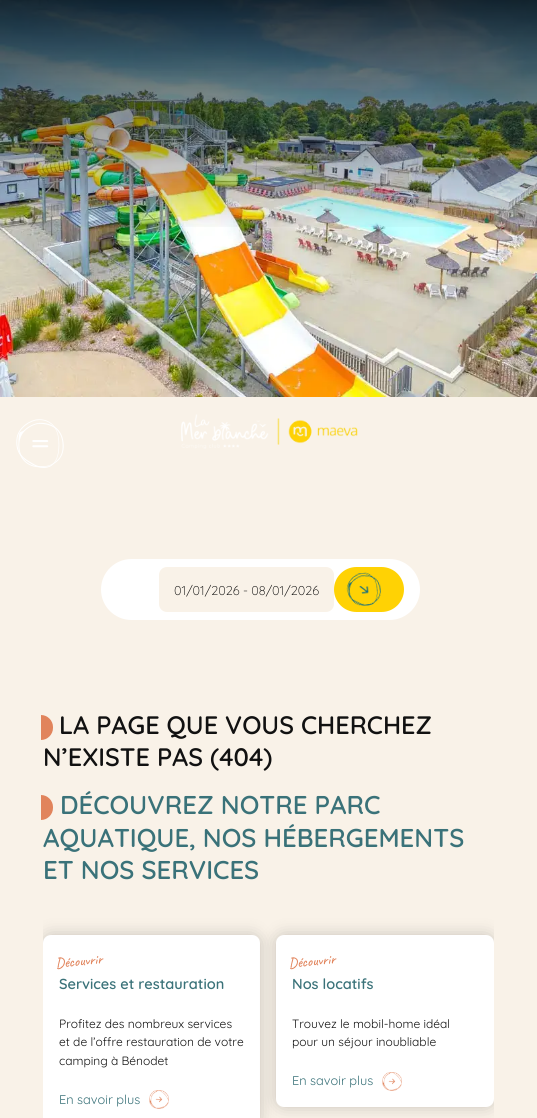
import math
import cairo

surface = cairo.ImageSurface(cairo.FORMAT_RGB24, 537, 1118)
c = cairo.Context(surface)
options = cairo.FontOptions()
options.set_hint_metrics(cairo.HINT_METRICS_OFF)
options.set_hint_style(cairo.HINT_STYLE_NONE)
c.set_font_options(options)
c.set_miter_limit(4)
def C(code):
 c.set_source_rgb(*(v / 255 for v in bytes.fromhex(code[-6:])))
def F(family, size, italic, bold):
 c.select_font_face(family, cairo.FONT_SLANT_ITALIC if italic else cairo.FONT_SLANT_NORMAL, cairo.FONT_WEIGHT_BOLD if bold else cairo.FONT_WEIGHT_NORMAL)
 c.set_font_size(size)
def T(x, y, s):
 c.move_to(x, y)
 c.show_text(s)
def R(x, y, w, h):
 c.rectangle(x, y, w, h)
 c.fill()
def Q(x, y, w, h, r):
 c.new_sub_path()
 for i, (u, v) in enumerate([(x + w - r, y + h - r), (x + r, y + h - r), (x + r, y + r), (x + w - r, y + r)]):
  c.arc(u, v, r, i * math.pi / 2, (i + 1) * math.pi / 2)
 c.close_path()
def S(x, y, w, h, r, blur, alpha):
 c.push_group_with_content(cairo.CONTENT_ALPHA)
 c.set_operator(cairo.OPERATOR_SOURCE)
 for i in range(15, -16, -2):
  e = blur * i / 6
  if min(w, h) + 2 * e > 0:
   c.set_source_rgba(0, 0, 0, alpha * math.erfc((i - 1) / 8.5) / 2)
   Q(x - e, y - e, w + 2 * e, h + 2 * e, max(0, min(r + e + blur * .6, min(w, h) / 2 + e)))
   c.fill()
 c.mask(c.pop_group())
def I(path, x, y, w, h):
 c.save()
 c.set_source_surface(cairo.ImageSurface.create_from_png(path), x, y)
 c.rectangle(x, y, w, h)
 c.fill()
 c.restore()
C('f9f2e8')
c.paint()
I('1.png',0,0,537,397)
gradient = cairo.LinearGradient(269,666,269,0)
gradient.add_color_stop_rgba(0,0,0,0,0)
gradient.add_color_stop_rgba(.65,0,0,0,0)
gradient.add_color_stop_rgba(1,0,0,0,.8)
c.set_source(gradient)
R(0,0,537,227)
I('2.png',16,419,48,49)
I('3.png',181,414,177,35)
C('ffffff')
Q(101,559,319,61,30.5)
c.fill()
C('f9f2e8')
Q(159,567,175,45,8)
c.fill()
F('Quicksand Light',12.75,0,0)
C('000000')
T(174,595,'01/01/2026 - 08/01/2026')
C('ffd204')
Q(334,567,70,45,22.5)
c.fill()
I('4.png',346,572,35,34)
C('e1845c')
c.new_path()
c.move_to(41,715)
c.curve_to(47.5,715,53,720.5,53,727)
c.line_to(53,728)
c.curve_to(53,734.5,47.5,740,41,740)
c.close_path()
c.fill()
F('Quicksand SemiBold',25.25,0,0)
C('111111')
T(59,734,'LA PAGE QUE VOUS CHERCHEZ')
T(43,766,'N’EXISTE PAS (404)')
C('e1845c')
c.new_path()
c.move_to(41,795)
c.curve_to(47.5,795,53,800.5,53,807)
c.line_to(53,808)
c.curve_to(53,814.5,47.5,820,41,820)
c.close_path()
c.fill()
F('Quicksand SemiBold',25.75,0,0)
C('3a7279')
T(60,814,'DÉCOUVREZ NOTRE PARC')
T(43,847,'AQUATIQUE, NOS HÉBERGEMENTS')
T(43,879,'ET NOS SERVICES')
c.save()
c.rectangle(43,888,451,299)
c.clip()
C('000000')
S(43,935,217,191,8,8,.2)
c.restore()
C('ffffff')
Q(43,935,217,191,8)
c.fill()
F('Caveat Medium',14.5,0,0)
C('e1845c')
c.save()
c.translate(56,968)
c.rotate(-5.5 * math.pi / 180)
T(0,0,'Découvrir')
c.restore()
F('Quicksand SemiBold',14.5,0,0)
C('3a7279')
T(59,989,'Services et restauration')
F('Quicksand',12,0,0)
C('111111')
T(59,1028,'Profitez des nombreux services')
T(59,1046,'et de l’offre restauration de votre')
T(59,1065,'camping à Bénodet')
F('Quicksand',12.75,0,0)
C('3a7279')
T(59,1104,'En savoir plus')
I('5.png',149,1090,20,19)
c.save()
c.rectangle(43,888,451,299)
c.clip()
C('000000')
S(276,935,218,172,8,8,.2)
c.restore()
C('ffffff')
Q(276,935,218,172,8)
c.fill()
F('Caveat Medium',14.5,0,0)
C('e1845c')
c.save()
c.translate(289,968)
c.rotate(-5.5 * math.pi / 180)
T(0,0,'Découvrir')
c.restore()
F('Quicksand SemiBold',14.5,0,0)
C('3a7279')
T(292,989,'Nos locatifs')
F('Quicksand',12,0,0)
C('111111')
T(292,1028,'Trouvez le mobil-home idéal')
T(292,1046,'pour un séjour inoubliable')
F('Quicksand',12.75,0,0)
C('3a7279')
T(292,1085,'En savoir plus')
I('5.png',382,1072,20,19)
surface.write_to_png('o.png')
